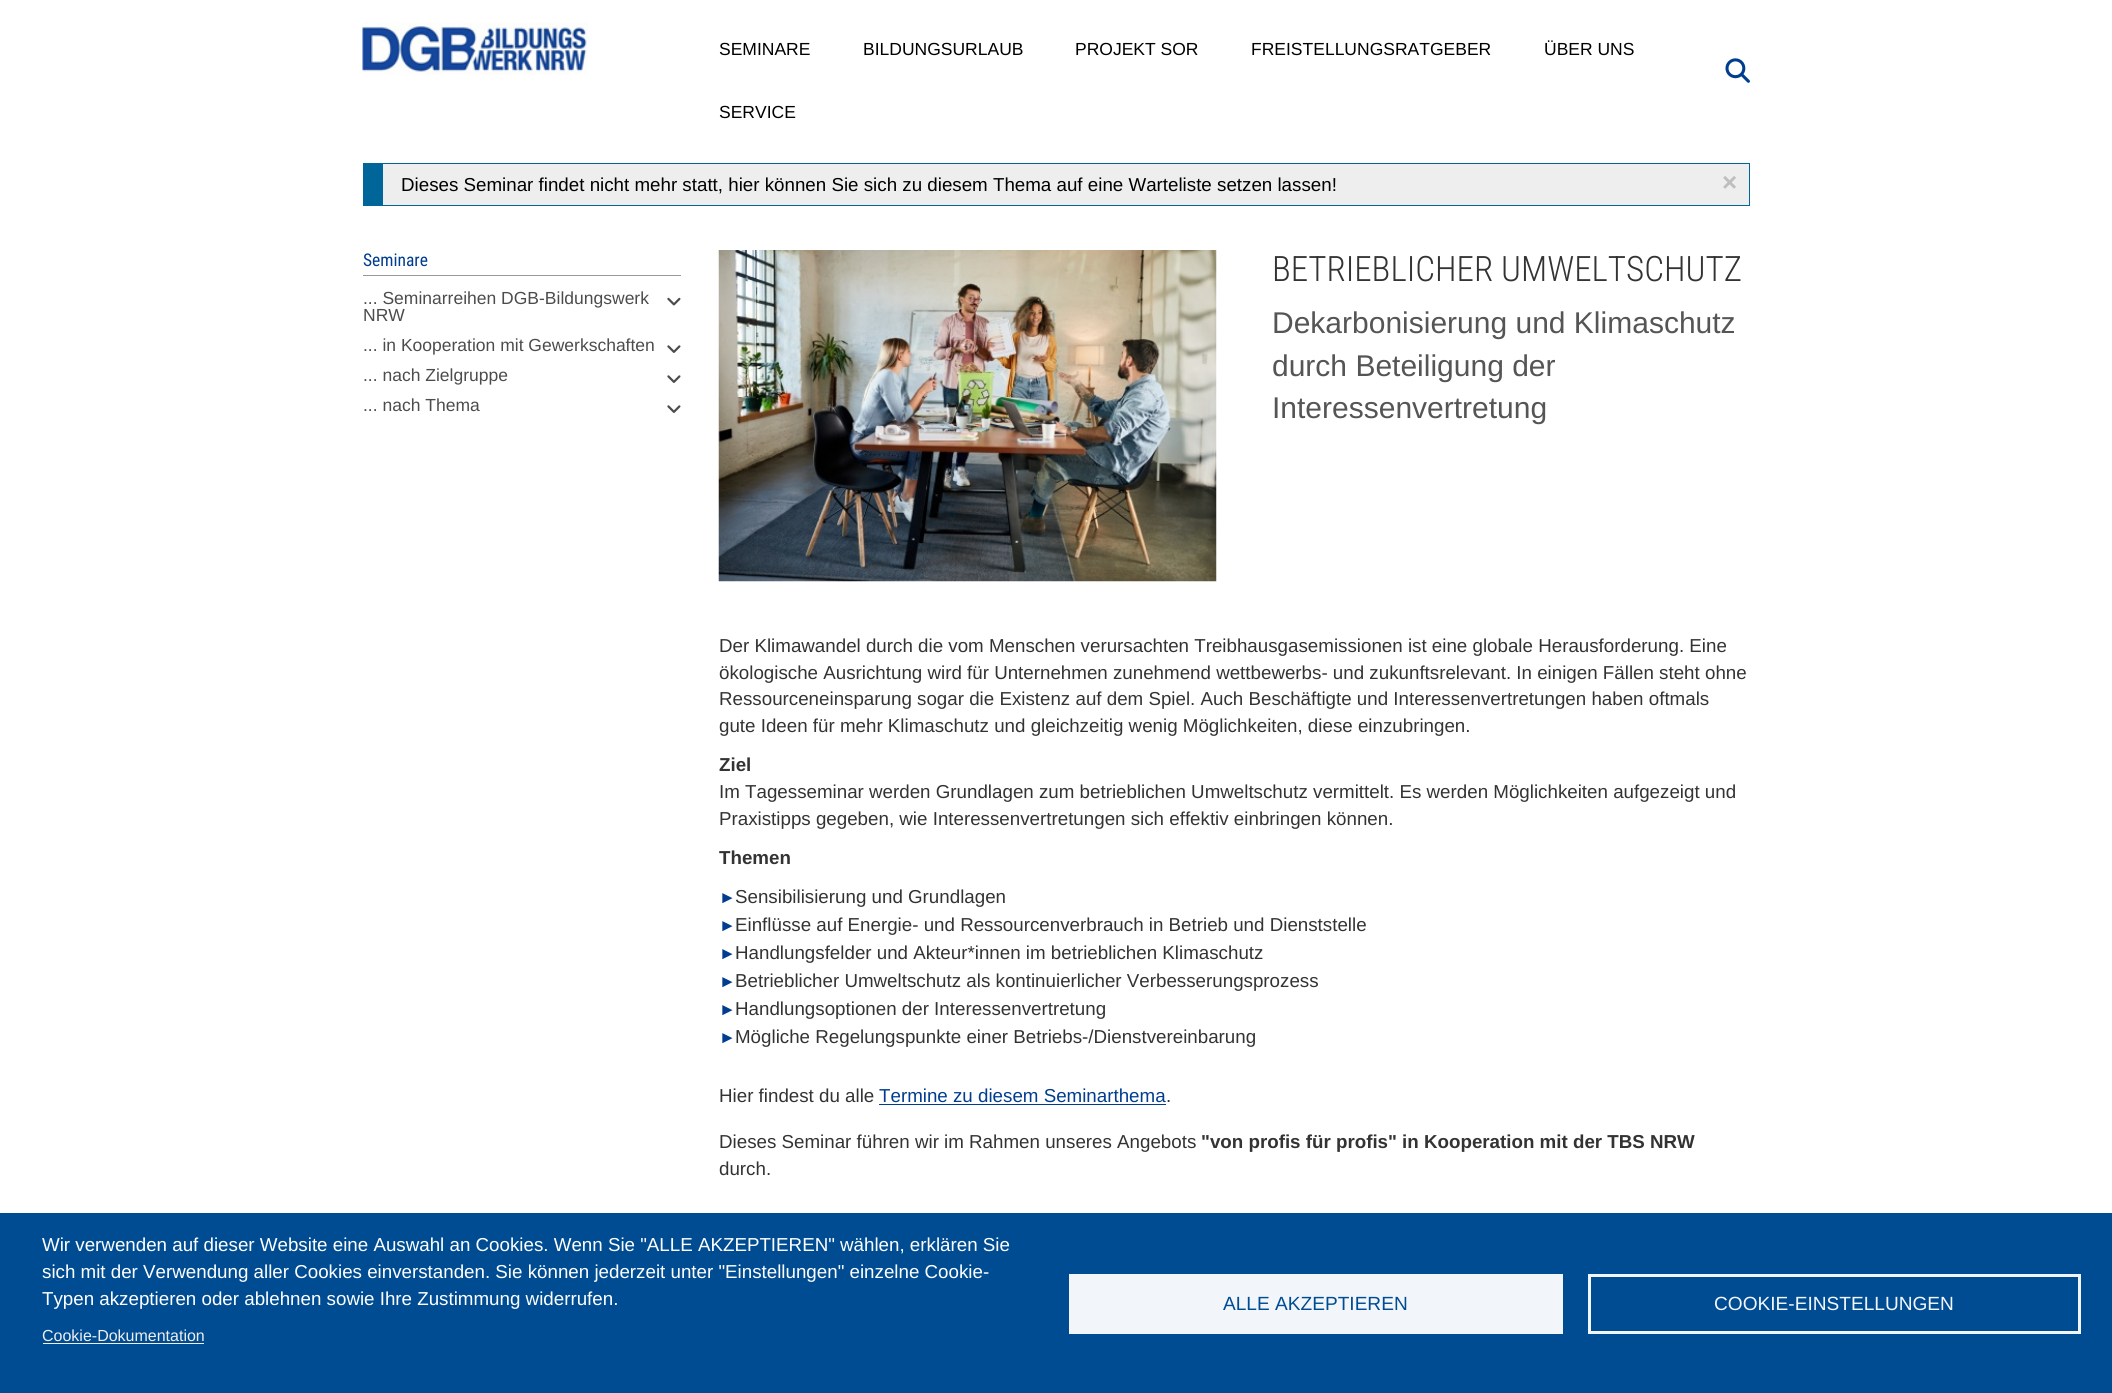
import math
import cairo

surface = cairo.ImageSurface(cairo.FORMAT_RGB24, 2112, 1393)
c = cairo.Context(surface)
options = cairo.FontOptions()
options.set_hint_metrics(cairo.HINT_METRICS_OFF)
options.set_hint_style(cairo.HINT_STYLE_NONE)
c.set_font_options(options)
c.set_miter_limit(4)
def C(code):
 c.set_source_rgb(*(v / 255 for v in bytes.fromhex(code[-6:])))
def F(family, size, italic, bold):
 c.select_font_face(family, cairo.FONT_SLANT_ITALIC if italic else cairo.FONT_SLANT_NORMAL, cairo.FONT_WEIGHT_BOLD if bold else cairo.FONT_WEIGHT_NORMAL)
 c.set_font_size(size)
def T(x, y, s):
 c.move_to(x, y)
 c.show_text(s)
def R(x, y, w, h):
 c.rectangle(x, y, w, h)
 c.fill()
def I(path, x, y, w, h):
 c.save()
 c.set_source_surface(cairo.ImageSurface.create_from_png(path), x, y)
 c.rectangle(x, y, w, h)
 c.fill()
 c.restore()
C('ffffff')
c.paint()
I('1.png',362,22,226,53)
F('Liberation Sans',17.5,0,0)
C('000000')
T(719,55,'SEMINARE')
T(863,55,'BILDUNGSURLAUB')
T(1075,55,'PROJEKT SOR')
T(1251,55,'FREISTELLUNGSRATGEBER')
T(1544,55,'ÜBER UNS')
T(719,118,'SERVICE')
I('2.png',1725,58,25,25)
C('eeeeee')
R(383,164,1366,41)
c.rectangle(363.5,163.5,1386,42)
C('006699')
c.set_line_width(1)
c.stroke()
R(364,164,19,41)
F('Liberation Sans',18.75,0,0)
C('000000')
T(401,191,'Dieses Seminar findet nicht mehr statt, hier können Sie sich zu diesem Thema auf eine Warteliste setzen lassen!')
F('Liberation Sans',26,0,1)
C('bebebe')
T(1722,191,'×')
F('Roboto Condensed',17.5,0,0)
C('003d8e')
T(363,266,'Seminare')
C('999999')
R(363,275,318,1)
F('Liberation Sans',17.5,0,0)
C('4c4c4c')
T(363,304,'... Seminarreihen DGB-Bildungswerk')
I('3.png',667,297,14,9)
T(363,321,'NRW')
T(363,351,'... in Kooperation mit Gewerkschaften')
I('4.png',667,345,14,8)
T(363,381,'... nach Zielgruppe')
I('4.png',667,375,14,8)
T(363,411,'... nach Thema')
I('4.png',667,405,14,8)
I('5.png',718,250,499,332)
F('Roboto Condensed Light',35,0,0)
C('333333')
T(1272,281,'BETRIEBLICHER UMWELTSCHUTZ')
F('Liberation Sans',30,0,0)
C('555555')
T(1272,333,'Dekarbonisierung und Klimaschutz')
T(1272,376,'durch Beteiligung der')
T(1272,418,'Interessenvertretung')
F('Liberation Sans',18.75,0,0)
C('333333')
T(719,652,'Der Klimawandel durch die vom Menschen verursachten Treibhausgasemissionen ist eine globale Herausforderung. Eine')
T(719,679,'ökologische Ausrichtung wird für Unternehmen zunehmend wettbewerbs- und zukunftsrelevant. In einigen Fällen steht ohne')
T(719,705,'Ressourceneinsparung sogar die Existenz auf dem Spiel. Auch Beschäftigte und Interessenvertretungen haben oftmals')
T(719,732,'gute Ideen für mehr Klimaschutz und gleichzeitig wenig Möglichkeiten, diese einzubringen.')
F('Liberation Sans',18.75,0,1)
T(719,771,'Ziel')
F('Liberation Sans',18.75,0,0)
T(719,798,'Im Tagesseminar werden Grundlagen zum betrieblichen Umweltschutz vermittelt. Es werden Möglichkeiten aufgezeigt und')
T(719,825,'Praxistipps gegeben, wie Interessenvertretungen sich effektiv einbringen können.')
F('Liberation Sans',18.75,0,1)
T(719,864,'Themen')
F('Liberation Sans',17,0,0)
C('003d8e')
T(719,903,'►')
F('Liberation Sans',18.75,0,0)
C('333333')
T(735,903,'Sensibilisierung und Grundlagen')
F('Liberation Sans',17,0,0)
C('003d8e')
T(719,931,'►')
F('Liberation Sans',18.75,0,0)
C('333333')
T(735,931,'Einflüsse auf Energie- und Ressourcenverbrauch in Betrieb und Dienststelle')
F('Liberation Sans',17,0,0)
C('003d8e')
T(719,959,'►')
F('Liberation Sans',18.75,0,0)
C('333333')
T(735,959,'Handlungsfelder und Akteur*innen im betrieblichen Klimaschutz')
F('Liberation Sans',17,0,0)
C('003d8e')
T(719,987,'►')
F('Liberation Sans',18.75,0,0)
C('333333')
T(735,987,'Betrieblicher Umweltschutz als kontinuierlicher Verbesserungsprozess')
F('Liberation Sans',17,0,0)
C('003d8e')
T(719,1015,'►')
F('Liberation Sans',18.75,0,0)
C('333333')
T(735,1015,'Handlungsoptionen der Interessenvertretung')
F('Liberation Sans',17,0,0)
C('003d8e')
T(719,1043,'►')
F('Liberation Sans',18.75,0,0)
C('333333')
T(735,1043,'Mögliche Regelungspunkte einer Betriebs-/Dienstvereinbarung')
T(719,1102,'Hier findest du alle')
C('003d8e')
T(879,1102,'Termine zu diesem Seminarthema')
C('333333')
T(1166,1102,'.')
C('003d8e')
R(879,1104,287,1)
C('333333')
T(719,1148,'Dieses Seminar führen wir im Rahmen unseres Angebots')
F('Liberation Sans',18.75,0,1)
T(1201,1148,'"von profis für profis" in Kooperation mit der TBS NRW')
F('Liberation Sans',18.75,0,0)
T(719,1175,'durch.')
C('004c93')
R(0,1213,2112,180)
C('ffffff')
T(42,1251,'Wir verwenden auf dieser Website eine Auswahl an Cookies. Wenn Sie "ALLE AKZEPTIEREN" wählen, erklären Sie')
T(42,1278,'sich mit der Verwendung aller Cookies einverstanden. Sie können jederzeit unter "Einstellungen" einzelne Cookie-')
T(42,1305,'Typen akzeptieren oder ablehnen sowie Ihre Zustimmung widerrufen.')
F('Liberation Sans',16,0,0)
C('eeeeee')
T(42,1341,'Cookie-Dokumentation')
R(43,1343,161,1)
C('f2f6fa')
R(1069,1274,494,60)
F('Liberation Sans',19.1,0,0)
C('004c93')
T(1223,1310,'ALLE AKZEPTIEREN')
c.rectangle(1589.5,1275.5,490,57)
C('f2f6fa')
c.set_line_width(3)
c.stroke()
T(1714,1310,'COOKIE-EINSTELLUNGEN')
surface.write_to_png('o.png')
